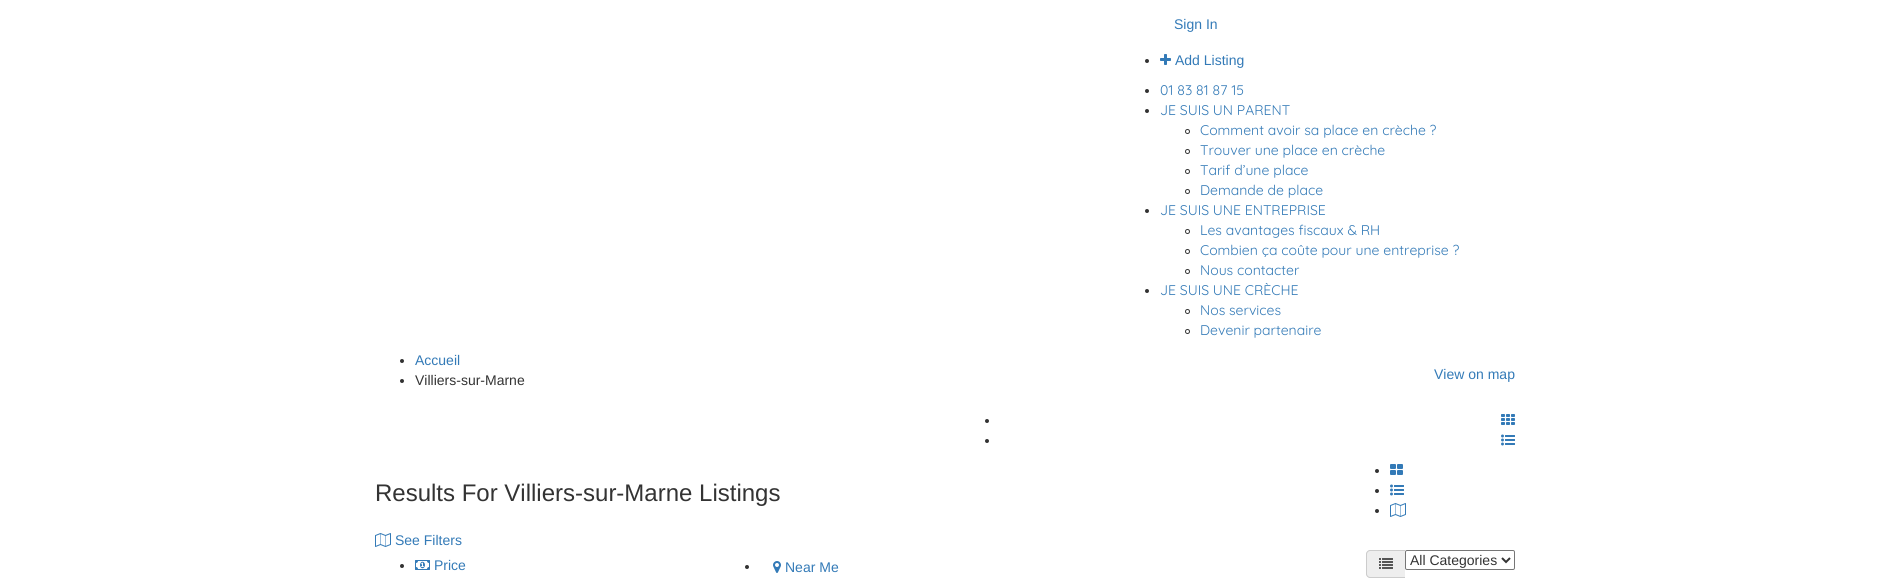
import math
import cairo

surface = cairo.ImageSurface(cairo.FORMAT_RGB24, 1890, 582)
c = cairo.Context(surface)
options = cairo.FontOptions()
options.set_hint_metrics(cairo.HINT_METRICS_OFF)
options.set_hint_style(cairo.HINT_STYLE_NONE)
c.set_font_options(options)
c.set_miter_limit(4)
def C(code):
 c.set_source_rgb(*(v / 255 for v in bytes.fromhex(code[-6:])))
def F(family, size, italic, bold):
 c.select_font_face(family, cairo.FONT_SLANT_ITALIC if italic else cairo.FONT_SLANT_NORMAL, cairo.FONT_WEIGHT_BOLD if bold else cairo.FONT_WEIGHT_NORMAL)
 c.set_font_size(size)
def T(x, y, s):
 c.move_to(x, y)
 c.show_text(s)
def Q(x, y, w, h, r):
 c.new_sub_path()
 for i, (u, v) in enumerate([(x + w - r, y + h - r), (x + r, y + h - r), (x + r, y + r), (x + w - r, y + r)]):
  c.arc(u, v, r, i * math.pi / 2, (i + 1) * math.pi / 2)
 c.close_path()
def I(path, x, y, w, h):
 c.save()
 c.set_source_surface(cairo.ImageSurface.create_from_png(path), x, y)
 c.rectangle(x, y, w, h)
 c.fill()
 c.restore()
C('ffffff')
c.paint()
F('Liberation Sans',14,0,0)
C('337ab7')
T(1174,29,'Sign In')
C('333333')
c.new_path()
c.arc(1147,61,2,0,2 * math.pi)
c.fill()
I('1.png',1160,54,11,11)
C('337ab7')
T(1175,65,'Add Listing')
C('333333')
c.new_path()
c.arc(1147,91,2,0,2 * math.pi)
c.fill()
F('Quicksand',14,0,0)
C('337ab7')
T(1160,95,'01 83 81 87 15')
C('333333')
c.new_path()
c.arc(1147,111,2,0,2 * math.pi)
c.fill()
C('337ab7')
T(1160,115,'JE SUIS UN PARENT')
c.new_path()
c.arc(1187.5,131.5,2,0,2 * math.pi)
C('333333')
c.set_line_width(1)
c.stroke()
C('337ab7')
T(1200,135,'Comment avoir sa place en crèche ?')
c.new_path()
c.arc(1187.5,151.5,2,0,2 * math.pi)
C('333333')
c.stroke()
C('337ab7')
T(1200,155,'Trouver une place en crèche')
c.new_path()
c.arc(1187.5,171.5,2,0,2 * math.pi)
C('333333')
c.stroke()
C('337ab7')
T(1200,175,'Tarif d’une place')
c.new_path()
c.arc(1187.5,191.5,2,0,2 * math.pi)
C('333333')
c.stroke()
C('337ab7')
T(1200,195,'Demande de place')
C('333333')
c.new_path()
c.arc(1147,211,2,0,2 * math.pi)
c.fill()
C('337ab7')
T(1160,215,'JE SUIS UNE ENTREPRISE')
c.new_path()
c.arc(1187.5,231.5,2,0,2 * math.pi)
C('333333')
c.stroke()
C('337ab7')
T(1200,235,'Les avantages fiscaux & RH')
c.new_path()
c.arc(1187.5,251.5,2,0,2 * math.pi)
C('333333')
c.stroke()
C('337ab7')
T(1200,255,'Combien ça coûte pour une entreprise ?')
c.new_path()
c.arc(1187.5,271.5,2,0,2 * math.pi)
C('333333')
c.stroke()
C('337ab7')
T(1200,275,'Nous contacter')
C('333333')
c.new_path()
c.arc(1147,291,2,0,2 * math.pi)
c.fill()
C('337ab7')
T(1160,295,'JE SUIS UNE CRÈCHE')
c.new_path()
c.arc(1187.5,311.5,2,0,2 * math.pi)
C('333333')
c.stroke()
C('337ab7')
T(1200,315,'Nos services')
c.new_path()
c.arc(1187.5,331.5,2,0,2 * math.pi)
C('333333')
c.stroke()
C('337ab7')
T(1200,335,'Devenir partenaire')
C('333333')
c.new_path()
c.arc(402,361,2,0,2 * math.pi)
c.fill()
F('Liberation Sans',14,0,0)
C('337ab7')
T(415,365,'Accueil')
C('333333')
c.new_path()
c.arc(402,381,2,0,2 * math.pi)
c.fill()
T(415,385,'Villiers-sur-Marne')
C('337ab7')
T(1434,379,'View on map')
C('333333')
c.new_path()
c.arc(987,421,2,0,2 * math.pi)
c.fill()
I('2.png',1501,414,14,11)
c.arc(987,441,2,0,2 * math.pi)
c.fill()
I('3.png',1501,434,14,12)
F('Liberation Sans',24,0,0)
T(375,501,'Results For Villiers-sur-Marne Listings')
c.new_path()
c.arc(1377,471,2,0,2 * math.pi)
c.fill()
I('4.png',1390,464,13,11)
c.arc(1377,491,2,0,2 * math.pi)
c.fill()
I('3.png',1390,484,14,12)
c.arc(1377,511,2,0,2 * math.pi)
c.fill()
I('5.png',1390,503,16,14)
I('5.png',375,533,16,14)
F('Liberation Sans',14,0,0)
C('337ab7')
T(395,545,'See Filters')
C('333333')
c.new_path()
c.arc(402,566,2,0,2 * math.pi)
c.fill()
I('6.png',415,560,15,10)
C('337ab7')
T(434,570,'Price')
C('333333')
c.new_path()
c.arc(747,567,2,0,2 * math.pi)
c.fill()
I('7.png',773,561,8,12)
C('337ab7')
T(785,572,'Near Me')
C('eeeeee')
c.new_path()
c.move_to(1370,550)
c.line_to(1405,550)
c.line_to(1405,578)
c.line_to(1370,578)
c.curve_to(1368,578,1366,576,1366,574)
c.line_to(1366,554)
c.curve_to(1366,552,1368,550,1370,550)
c.close_path()
c.fill()
C('cccccc')
c.set_fill_rule(cairo.FILL_RULE_EVEN_ODD)
c.new_path()
c.move_to(1370,550)
c.line_to(1405,550)
c.line_to(1405,578)
c.line_to(1370,578)
c.curve_to(1368,578,1366,576,1366,574)
c.line_to(1366,554)
c.curve_to(1366,552,1368,550,1370,550)
c.close_path()
c.move_to(1370,551)
c.line_to(1405,551)
c.line_to(1405,577)
c.line_to(1370,577)
c.curve_to(1368.5,577,1367,575.5,1367,574)
c.line_to(1367,554)
c.curve_to(1367,552.5,1368.5,551,1370,551)
c.close_path()
c.fill()
I('8.png',1379,558,14,11)
Q(1405.5,550.5,109,19,1.5)
C('767676')
c.stroke()
c.new_path()
c.move_to(1502,558)
c.line_to(1506,562)
c.line_to(1510,558)
C('333333')
c.set_line_width(2)
c.stroke()
T(1410,565,'All Categories')
surface.write_to_png('o.png')
